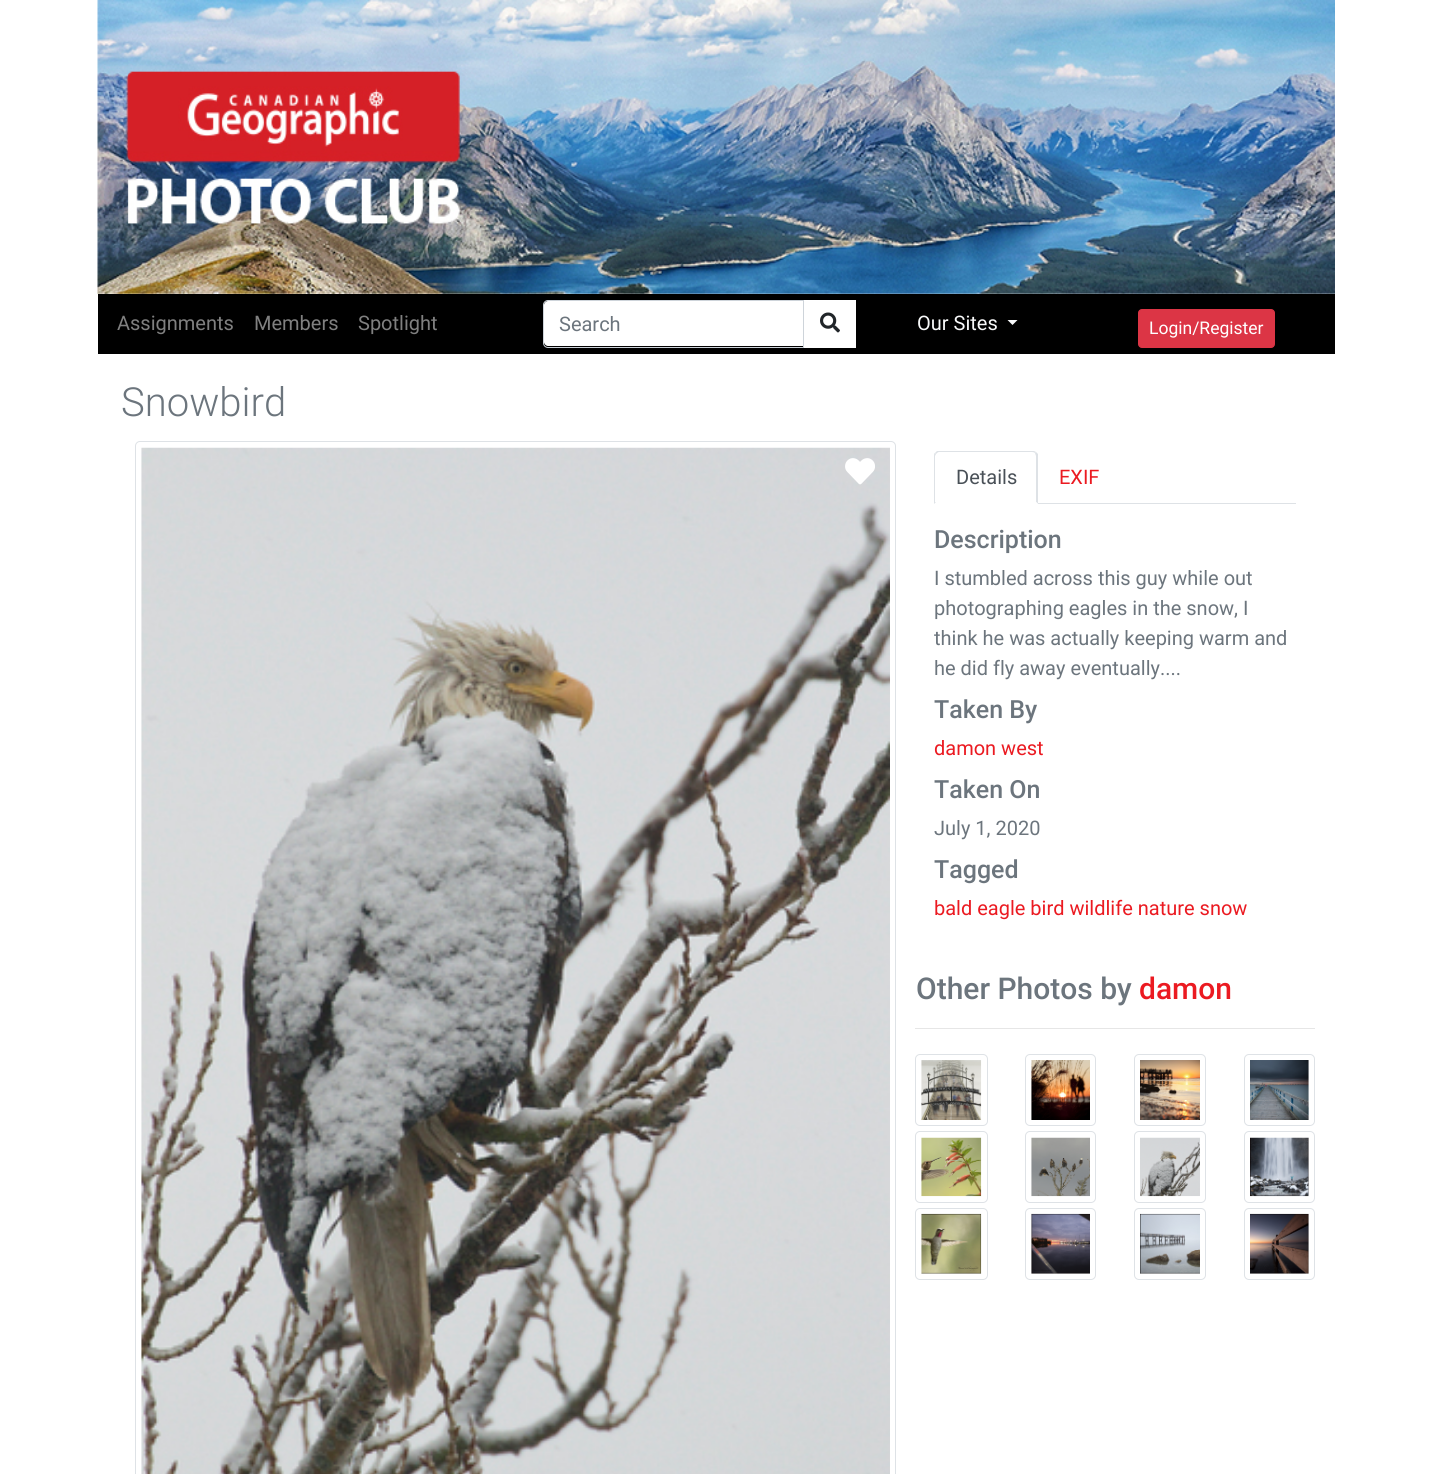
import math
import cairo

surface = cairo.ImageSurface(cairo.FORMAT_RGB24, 1431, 1474)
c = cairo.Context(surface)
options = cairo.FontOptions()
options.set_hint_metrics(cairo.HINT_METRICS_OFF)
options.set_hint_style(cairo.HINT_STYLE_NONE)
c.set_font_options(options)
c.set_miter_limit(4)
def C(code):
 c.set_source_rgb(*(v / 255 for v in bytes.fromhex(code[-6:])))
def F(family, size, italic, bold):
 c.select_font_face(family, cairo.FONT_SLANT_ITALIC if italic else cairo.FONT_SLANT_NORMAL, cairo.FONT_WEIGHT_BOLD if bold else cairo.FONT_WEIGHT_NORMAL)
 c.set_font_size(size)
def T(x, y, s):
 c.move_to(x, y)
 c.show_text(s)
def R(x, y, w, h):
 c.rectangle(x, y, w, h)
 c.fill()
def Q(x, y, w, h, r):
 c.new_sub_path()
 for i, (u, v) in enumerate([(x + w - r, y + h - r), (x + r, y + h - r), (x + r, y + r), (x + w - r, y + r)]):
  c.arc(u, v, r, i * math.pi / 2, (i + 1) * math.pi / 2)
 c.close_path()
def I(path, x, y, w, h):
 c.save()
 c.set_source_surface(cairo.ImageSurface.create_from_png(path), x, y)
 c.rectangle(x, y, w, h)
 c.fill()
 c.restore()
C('ffffff')
c.paint()
I('1.png',97,0,1238,294)
C('000000')
R(98,294,1237,60)
F('Roboto',20,0,0)
C('808080')
T(117,330,'Assignments')
T(254,330,'Members')
T(358,330,'Spotlight')
C('ffffff')
c.new_path()
c.move_to(548,301)
c.line_to(803,301)
c.line_to(803,346)
c.line_to(548,346)
c.curve_to(546,346,544,344,544,342)
c.line_to(544,305)
c.curve_to(544,303,546,301,548,301)
c.close_path()
c.fill()
c.new_path()
c.move_to(548,300.5)
c.line_to(803.5,300.5)
c.line_to(803.5,347.5)
c.line_to(548,347.5)
c.curve_to(545.5,347.5,543.5,345.5,543.5,343)
c.line_to(543.5,305)
c.curve_to(543.5,302.5,545.5,300.5,548,300.5)
c.close_path()
C('ced4da')
c.set_line_width(1)
c.stroke()
C('6c757d')
T(559,331,'Search')
C('ffffff')
R(804,300,52,48)
I('2.png',820,312,20,21)
C('f8f9fa')
T(917,330,'Our Sites')
c.new_path()
c.move_to(1007.5,320)
c.line_to(1017.5,320)
c.line_to(1012.5,325)
c.close_path()
c.fill()
C('dc3545')
Q(1138.5,309.5,136,38,3.5)
c.fill_preserve()
c.stroke()
F('Roboto',17.5,0,0)
C('ffffff')
T(1149,334,'Login/Register')
F('Roboto Light',40,0,0)
C('6c757d')
T(121,416,'Snowbird')
Q(135.5,441.5,760,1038,4.5)
C('dee2e6')
c.stroke()
I('3.png',141,447,749,1027)
I('4.png',845,458,30,27)
R(1038,503,258,1)
c.new_path()
c.move_to(939,452)
c.curve_to(938,452,937,453,936,454)
c.line_to(935,453)
c.line_to(937,451)
c.line_to(1034,451)
c.line_to(1036,452)
c.line_to(1035,453)
c.curve_to(1035,453,1034,452,1032,452)
c.close_path()
c.fill()
c.new_path()
c.move_to(1036,452)
c.line_to(1038,454)
c.line_to(1038,504)
c.line_to(1036,502)
c.line_to(1036,456)
c.line_to(1035,453)
c.close_path()
c.fill()
C('ffffff')
c.new_path()
c.move_to(1038,504)
c.line_to(934,504)
c.line_to(936,502)
c.line_to(1036,502)
c.close_path()
c.fill()
C('dee2e6')
c.new_path()
c.move_to(934,504)
c.line_to(934,456)
c.curve_to(934,455,934,453,935,453)
c.line_to(936,454)
c.line_to(935,456)
c.line_to(935,502)
c.line_to(936,502)
c.close_path()
c.fill()
F('Roboto',20,0,0)
C('495057')
T(956,484,'Details')
C('eb1a21')
T(1059,484,'EXIF')
F('Roboto Medium',25,0,0)
C('6c757d')
T(934,548,'Description')
F('Roboto',20,0,0)
T(934,585,'I stumbled across this guy while out')
T(934,615,'photographing eagles in the snow, I')
T(934,645,'think he was actually keeping warm and')
T(934,675,'he did fly away eventually....')
F('Roboto Medium',25,0,0)
T(934,718,'Taken By')
F('Roboto',20,0,0)
C('eb1a21')
T(934,755,'damon west')
F('Roboto Medium',25,0,0)
C('6c757d')
T(934,798,'Taken On')
F('Roboto',20,0,0)
T(934,835,'July 1, 2020')
F('Roboto Medium',25,0,0)
T(934,878,'Tagged')
F('Roboto',20,0,0)
C('eb1a21')
T(934,915,'bald eagle bird wildlife nature snow')
F('Roboto Medium',30,0,0)
C('6c757d')
T(916,999,'Other Photos by')
C('eb1a21')
T(1139,999,'damon')
C('e6e6e6')
R(915,1028,400,1)
Q(915.5,1054.5,72,71,4.5)
C('dee2e6')
c.stroke()
I('5.png',921,1060,61,60)
Q(1025.5,1054.5,70,71,4.5)
c.stroke()
I('6.png',1031,1060,59,60)
Q(1134.5,1054.5,71,71,4.5)
c.stroke()
I('7.png',1140,1060,60,60)
Q(1244.5,1054.5,70,71,4.5)
c.stroke()
I('8.png',1250,1060,59,60)
Q(915.5,1131.5,72,71,4.5)
c.stroke()
I('9.png',921,1137,61,60)
Q(1025.5,1131.5,70,71,4.5)
c.stroke()
I('10.png',1031,1137,59,60)
Q(1134.5,1131.5,71,71,4.5)
c.stroke()
I('11.png',1140,1137,60,60)
Q(1244.5,1131.5,70,71,4.5)
c.stroke()
I('12.png',1250,1137,59,60)
Q(915.5,1208.5,72,71,4.5)
c.stroke()
I('13.png',921,1213,61,61)
Q(1025.5,1208.5,70,71,4.5)
c.stroke()
I('14.png',1031,1213,59,61)
Q(1134.5,1208.5,71,71,4.5)
c.stroke()
I('15.png',1140,1213,60,61)
Q(1244.5,1208.5,70,71,4.5)
c.stroke()
I('16.png',1250,1213,59,61)
surface.write_to_png('o.png')
